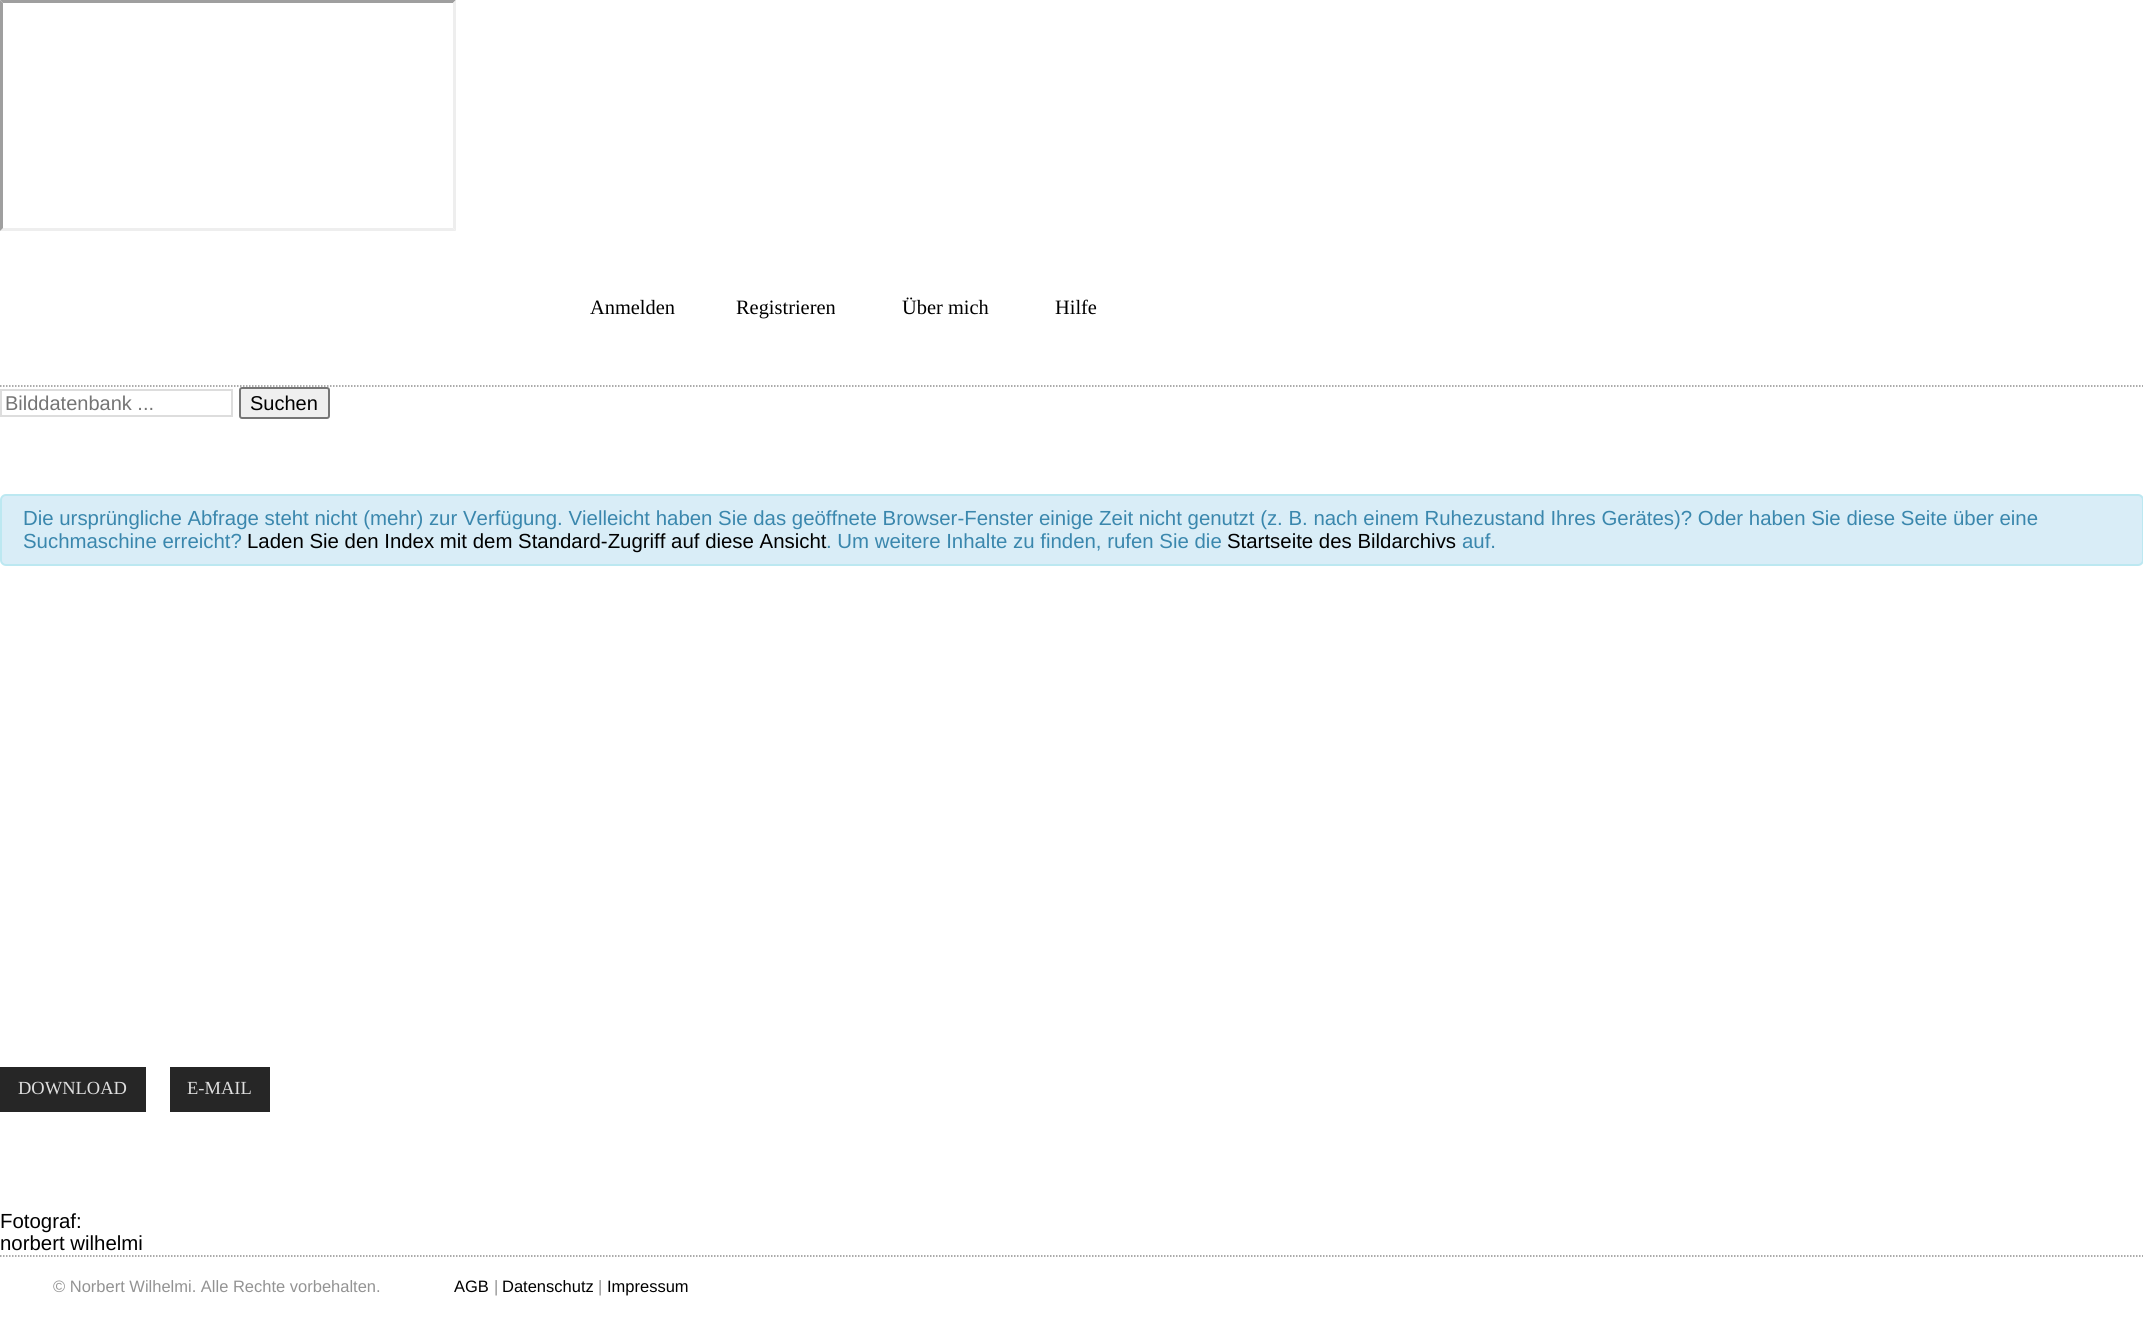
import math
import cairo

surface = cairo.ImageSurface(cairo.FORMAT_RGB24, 2143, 1317)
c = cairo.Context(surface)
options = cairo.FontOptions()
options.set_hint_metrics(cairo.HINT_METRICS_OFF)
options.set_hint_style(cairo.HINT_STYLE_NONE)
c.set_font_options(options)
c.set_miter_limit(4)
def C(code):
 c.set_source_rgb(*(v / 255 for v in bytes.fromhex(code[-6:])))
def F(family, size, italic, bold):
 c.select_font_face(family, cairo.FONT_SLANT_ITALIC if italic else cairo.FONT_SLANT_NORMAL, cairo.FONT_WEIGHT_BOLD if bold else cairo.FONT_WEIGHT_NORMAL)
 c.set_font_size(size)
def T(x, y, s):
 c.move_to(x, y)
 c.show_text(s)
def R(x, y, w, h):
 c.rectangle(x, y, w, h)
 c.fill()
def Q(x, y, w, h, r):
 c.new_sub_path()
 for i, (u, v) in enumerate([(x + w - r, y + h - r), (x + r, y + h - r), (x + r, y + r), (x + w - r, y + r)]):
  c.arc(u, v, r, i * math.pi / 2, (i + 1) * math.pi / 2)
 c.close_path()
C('ffffff')
c.paint()
C('9f9f9f')
c.new_path()
c.move_to(0,0)
c.line_to(456,0)
c.line_to(453,3)
c.line_to(3,3)
c.close_path()
c.fill()
C('eeeeee')
c.new_path()
c.move_to(456,0)
c.line_to(456,231)
c.line_to(453,228)
c.line_to(453,3)
c.close_path()
c.fill()
c.new_path()
c.move_to(456,231)
c.line_to(0,231)
c.line_to(3,228)
c.line_to(453,228)
c.close_path()
c.fill()
C('9f9f9f')
c.new_path()
c.move_to(0,231)
c.line_to(0,0)
c.line_to(3,3)
c.line_to(3,228)
c.close_path()
c.fill()
c.new_path()
c.move_to(0,386)
c.line_to(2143.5,386)
C('8f8f8f')
c.set_line_width(1.5)
c.set_dash([1.5,1.5])
c.stroke()
F('Liberation Serif',20.4,0,0)
C('000000')
T(590,314,'Anmelden')
T(736,314,'Registrieren')
T(902,314,'Über mich')
T(1055,314,'Hilfe')
c.rectangle(1,390,231,26)
C('dddddd')
c.set_line_width(2)
c.set_dash([])
c.stroke()
F('Liberation Sans',20,0,0)
C('757575')
T(5,410,'Bilddatenbank ...')
C('efefef')
Q(240,388,89,30,2)
c.fill_preserve()
C('767676')
c.stroke()
C('000000')
T(250,410,'Suchen')
C('d9edf7')
Q(1,495,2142,70,5)
c.fill_preserve()
C('bce8f1')
c.stroke()
F('Liberation Sans',20.4,0,0)
C('3a87ad')
T(23,525,'Die ursprüngliche Abfrage steht nicht (mehr) zur Verfügung. Vielleicht haben Sie das geöffnete Browser-Fenster einige Zeit nicht genutzt (z. B. nach einem Ruhezustand Ihres Gerätes)? Oder haben Sie diese Seite über eine')
T(23,548,'Suchmaschine erreicht?')
C('000000')
T(247,548,'Laden Sie den Index mit dem Standard-Zugriff auf diese Ansicht')
C('3a87ad')
T(826,548,'. Um weitere Inhalte zu finden, rufen Sie die')
C('000000')
T(1227,548,'Startseite des Bildarchivs')
C('3a87ad')
T(1462,548,'auf.')
C('262626')
R(0,1067,146,45)
F('Liberation Serif',18.5,0,0)
C('dedede')
T(18,1094,'DOWNLOAD')
C('262626')
R(170,1067,100,45)
C('dedede')
T(187,1094,'E-MAIL')
F('Liberation Sans',20.4,0,0)
C('000000')
T(0,1228,'Fotograf:')
T(0,1250,'norbert wilhelmi')
c.new_path()
c.move_to(0,1256)
c.line_to(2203.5,1256)
C('8f8f8f')
c.set_line_width(1.5)
c.set_dash([1.5,1.5])
c.stroke()
F('Liberation Sans',16.5,0,0)
C('939393')
T(53,1292,'© Norbert Wilhelmi. Alle Rechte vorbehalten.')
C('000000')
T(454,1292,'AGB')
C('939393')
T(494,1292,'|')
C('000000')
T(502,1292,'Datenschutz')
C('939393')
T(598,1292,'|')
C('000000')
T(607,1292,'Impressum')
surface.write_to_png('o.png')
